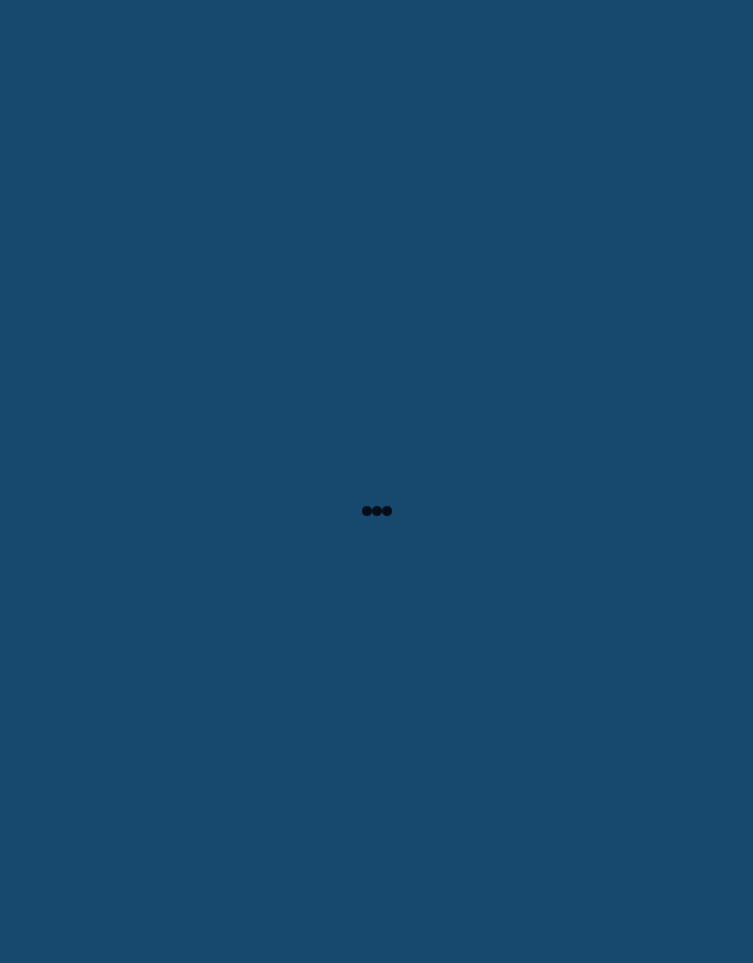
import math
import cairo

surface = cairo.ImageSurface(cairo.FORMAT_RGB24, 753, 963)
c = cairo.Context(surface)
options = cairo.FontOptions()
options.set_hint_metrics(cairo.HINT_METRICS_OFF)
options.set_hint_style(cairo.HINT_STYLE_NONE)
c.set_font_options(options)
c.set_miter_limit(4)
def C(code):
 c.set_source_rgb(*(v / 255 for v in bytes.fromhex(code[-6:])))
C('17486e')
c.paint()
C('050e16')
c.arc(367,511,5,0,2 * math.pi)
c.fill()
c.arc(377,511,5,0,2 * math.pi)
c.fill()
c.arc(387,511,5,0,2 * math.pi)
c.fill()
surface.write_to_png('o.png')
